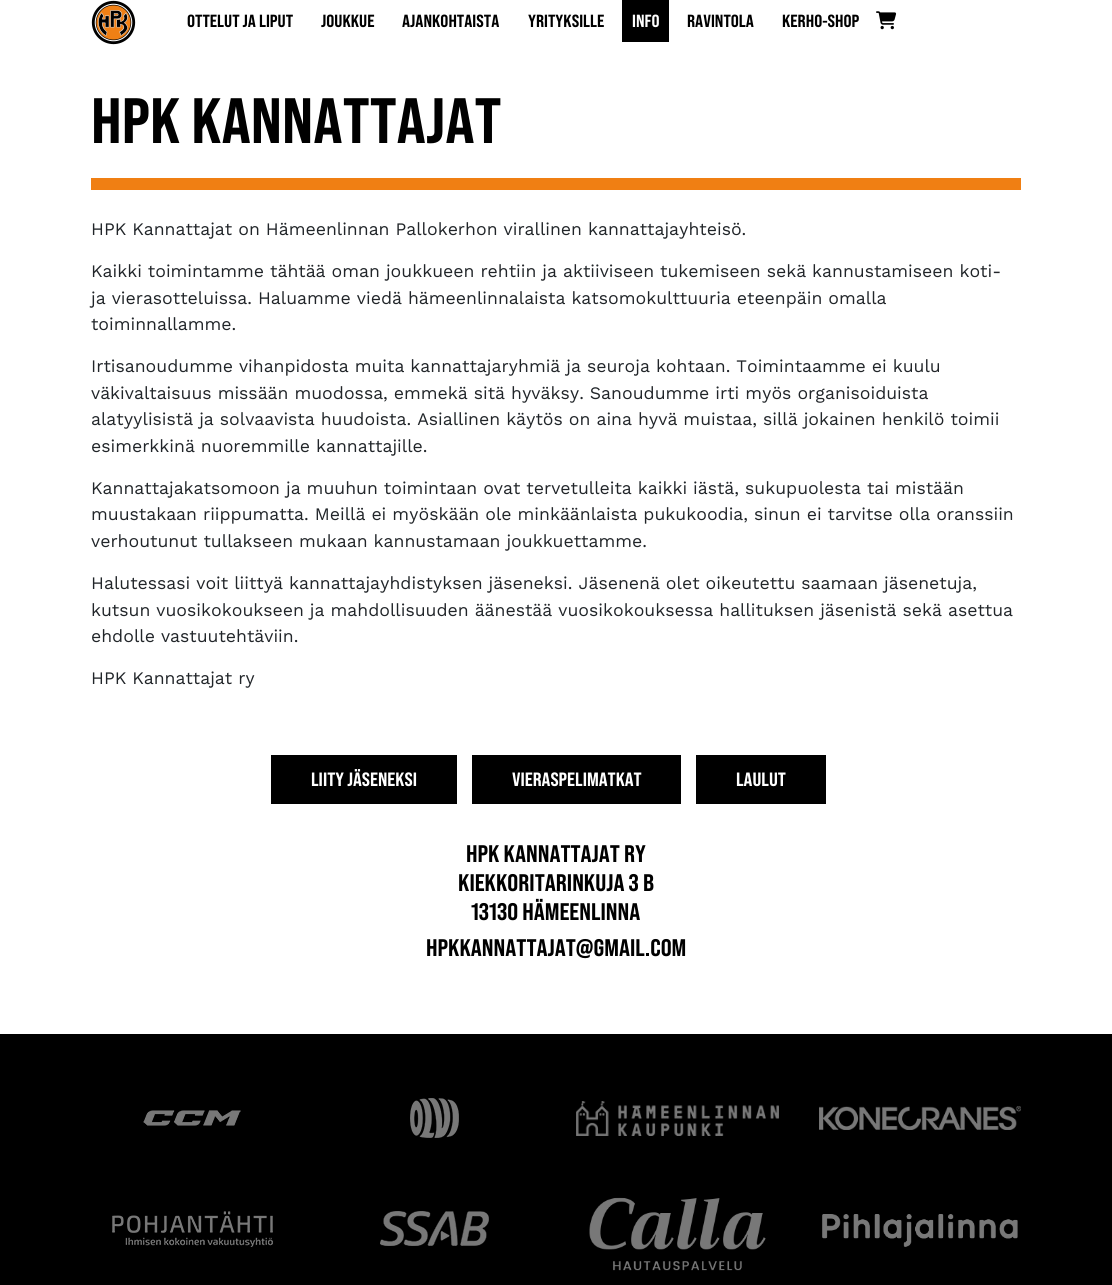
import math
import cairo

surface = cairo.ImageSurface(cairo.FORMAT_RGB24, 1112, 1285)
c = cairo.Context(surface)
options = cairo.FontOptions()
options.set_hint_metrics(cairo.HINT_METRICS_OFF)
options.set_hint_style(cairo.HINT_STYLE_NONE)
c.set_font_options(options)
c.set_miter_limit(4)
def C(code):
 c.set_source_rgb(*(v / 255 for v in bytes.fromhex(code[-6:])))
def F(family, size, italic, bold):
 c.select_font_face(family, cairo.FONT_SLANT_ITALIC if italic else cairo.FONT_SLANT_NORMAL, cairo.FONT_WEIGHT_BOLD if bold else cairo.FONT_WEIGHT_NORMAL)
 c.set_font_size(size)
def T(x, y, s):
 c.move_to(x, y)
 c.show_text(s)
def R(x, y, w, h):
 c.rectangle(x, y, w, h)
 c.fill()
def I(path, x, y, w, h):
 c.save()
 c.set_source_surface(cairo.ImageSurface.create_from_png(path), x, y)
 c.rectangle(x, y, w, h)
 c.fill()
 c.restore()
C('ffffff')
c.paint()
I('1.png',91,0,45,45)
F('Bebas Neue ExtraBold',17.6,0,0)
C('000000')
T(187,27,'OTTELUT JA LIPUT')
T(321,27,'JOUKKUE')
T(402,27,'AJANKOHTAISTA')
T(528,27,'YRITYKSILLE')
R(622,0,47,42)
C('ffffff')
T(632,27,'INFO')
C('000000')
T(687,27,'RAVINTOLA')
T(782,27,'KERHO-SHOP')
I('2.png',876,11,21,19)
C('f07f13')
R(91,178,930,12)
F('Bebas Neue ExtraBold',64,0,0)
C('000000')
T(91,143,'HPK KANNATTAJAT')
F('Work Sans',17.6,0,0)
C('212529')
T(91,235,'HPK Kannattajat on Hämeenlinnan Pallokerhon virallinen kannattajayhteisö.')
T(91,277,'Kaikki toimintamme tähtää oman joukkueen rehtiin ja aktiiviseen tukemiseen sekä kannustamiseen koti-')
T(91,304,'ja vierasotteluissa. Haluamme viedä hämeenlinnalaista katsomokulttuuria eteenpäin omalla')
T(91,330,'toiminnallamme.')
T(91,372,'Irtisanoudumme vihanpidosta muita kannattajaryhmiä ja seuroja kohtaan. Toimintaamme ei kuulu')
T(91,399,'väkivaltaisuus missään muodossa, emmekä sitä hyväksy. Sanoudumme irti myös organisoiduista')
T(91,425,'alatyylisistä ja solvaavista huudoista. Asiallinen käytös on aina hyvä muistaa, sillä jokainen henkilö toimii')
T(91,452,'esimerkkinä nuoremmille kannattajille.')
T(91,494,'Kannattajakatsomoon ja muuhun toimintaan ovat tervetulleita kaikki iästä, sukupuolesta tai mistään')
T(91,520,'muustakaan riippumatta. Meillä ei myöskään ole minkäänlaista pukukoodia, sinun ei tarvitse olla oranssiin')
T(91,547,'verhoutunut tullakseen mukaan kannustamaan joukkuettamme.')
T(91,589,'Halutessasi voit liittyä kannattajayhdistyksen jäseneksi. Jäsenenä olet oikeutettu saamaan jäsenetuja,')
T(91,616,'kutsun vuosikokoukseen ja mahdollisuuden äänestää vuosikokouksessa hallituksen jäsenistä sekä asettua')
T(91,642,'ehdolle vastuutehtäviin.')
T(91,684,'HPK Kannattajat ry')
C('000000')
R(271,755,186,49)
F('Bebas Neue ExtraBold',19.25,0,0)
C('ffffff')
T(311,786,'LIITY JÄSENEKSI')
C('000000')
R(472,755,209,49)
C('ffffff')
T(512,786,'VIERASPELIMATKAT')
C('000000')
R(696,755,130,49)
C('ffffff')
T(736,786,'LAULUT')
F('Bebas Neue ExtraBold',24,0,0)
C('000000')
T(466,862,'HPK KANNATTAJAT RY')
T(458,891,'KIEKKORITARINKUJA 3 B')
T(471,920,'13130 HÄMEENLINNA')
T(426,956,'HPKKANNATTAJAT@GMAIL.COM')
R(0,1034,1112,251)
I('3.png',143,1110,98,16)
I('4.png',410,1098,49,40)
I('5.png',576,1101,203,35)
I('6.png',819,1106,202,24)
I('7.png',112,1211,161,36)
I('8.png',380,1211,109,35)
I('9.png',589,1197,177,74)
I('10.png',822,1214,196,33)
surface.write_to_png('o.png')
